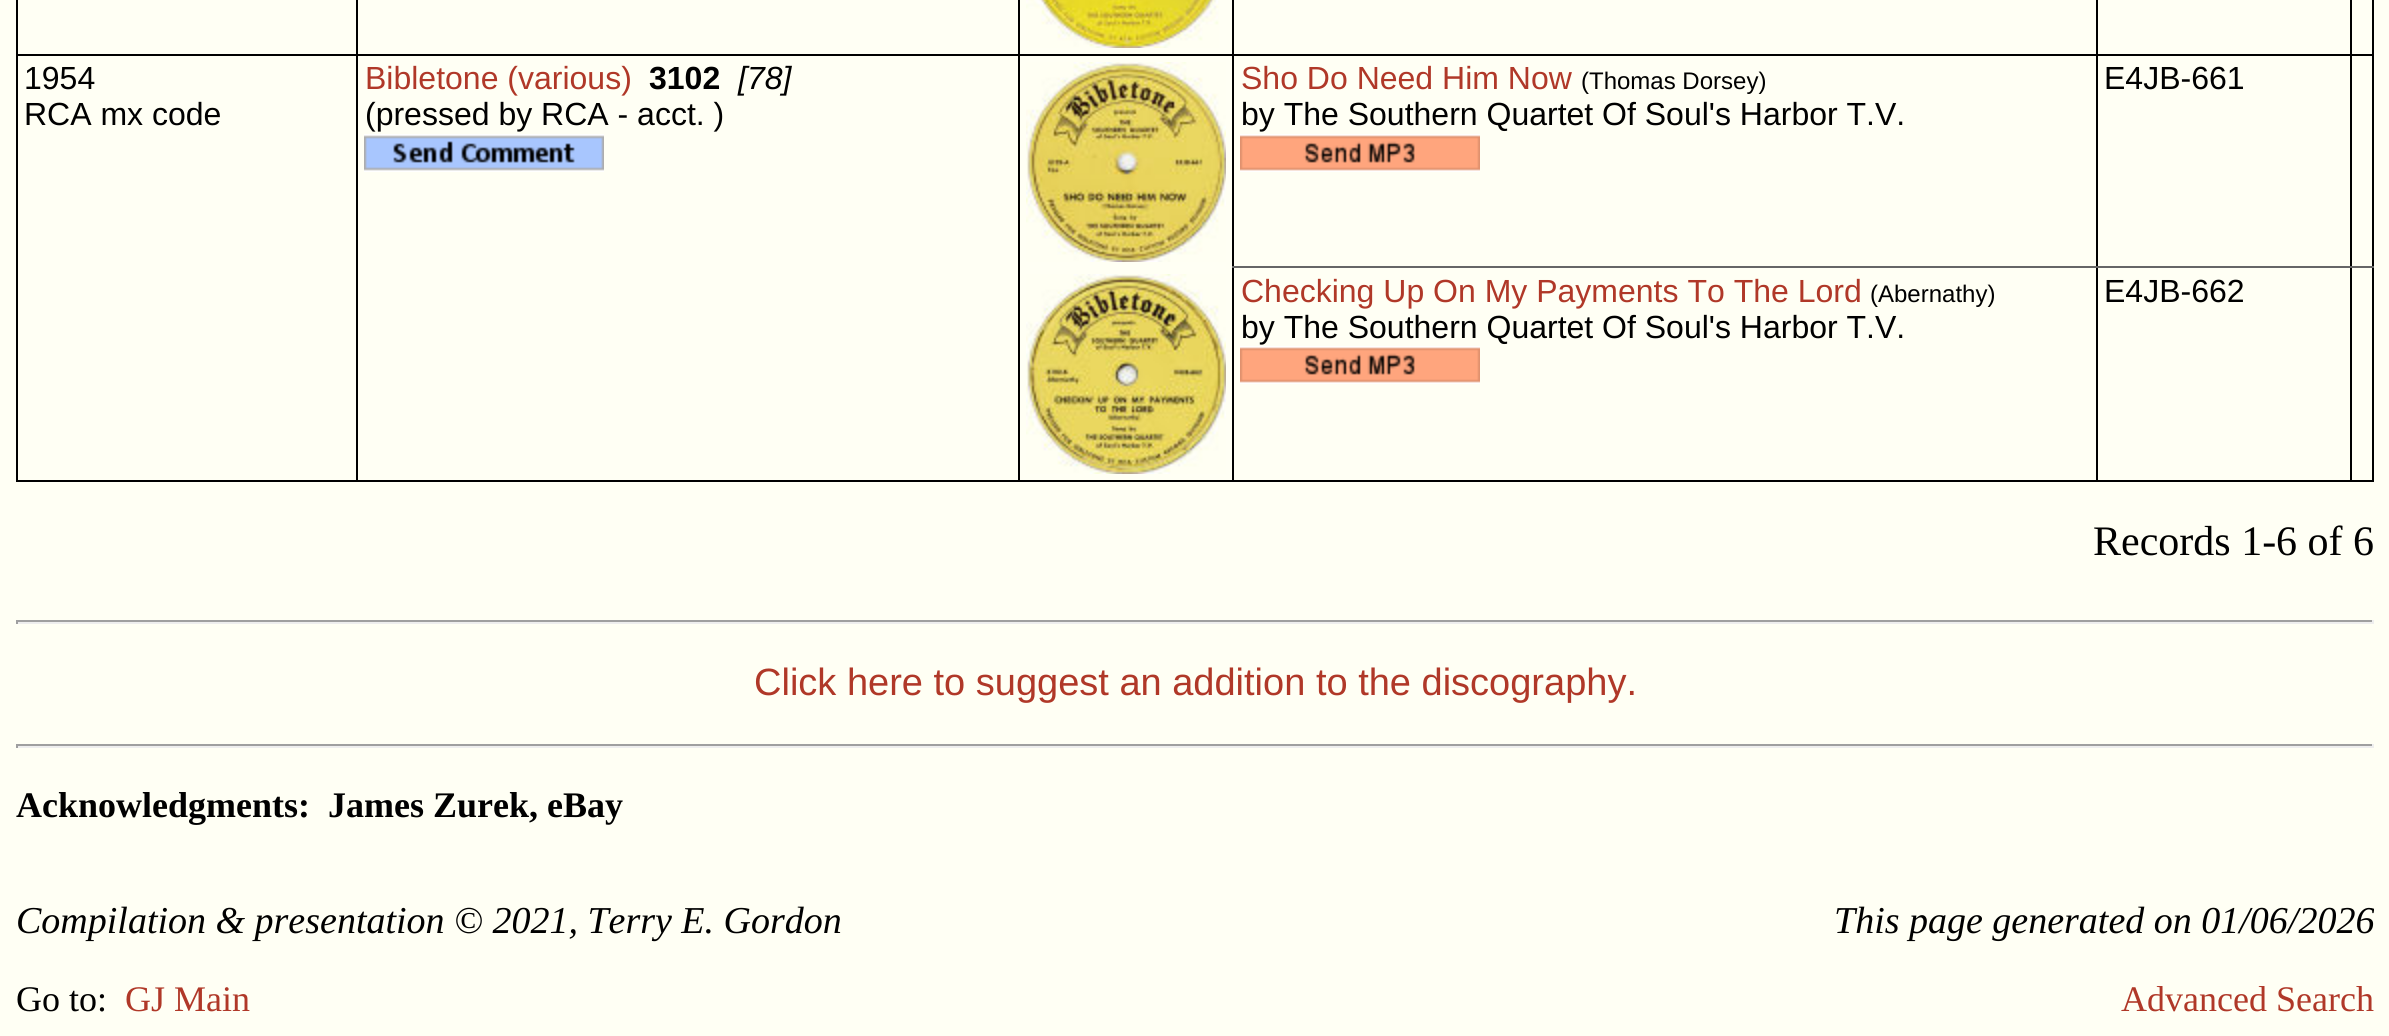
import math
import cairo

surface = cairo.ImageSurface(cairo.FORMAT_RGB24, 2389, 1036)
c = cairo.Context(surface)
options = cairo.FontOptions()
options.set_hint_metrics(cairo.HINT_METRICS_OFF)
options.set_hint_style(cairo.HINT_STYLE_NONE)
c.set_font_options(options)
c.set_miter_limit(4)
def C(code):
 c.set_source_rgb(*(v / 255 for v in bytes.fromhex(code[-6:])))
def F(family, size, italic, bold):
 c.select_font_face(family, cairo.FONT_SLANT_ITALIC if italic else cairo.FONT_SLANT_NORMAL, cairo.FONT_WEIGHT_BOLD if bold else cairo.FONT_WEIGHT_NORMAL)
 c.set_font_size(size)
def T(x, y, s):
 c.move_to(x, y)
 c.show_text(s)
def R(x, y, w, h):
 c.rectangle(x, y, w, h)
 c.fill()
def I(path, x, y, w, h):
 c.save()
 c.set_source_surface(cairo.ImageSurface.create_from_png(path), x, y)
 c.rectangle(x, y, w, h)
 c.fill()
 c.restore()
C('fffff4')
c.paint()
C('000000')
R(2372,0,2,482)
R(16,480,2358,2)
R(16,0,2,482)
R(16,54,2358,2)
R(356,0,2,482)
R(1018,0,2,482)
I('1.png',1026,0,193,48)
R(1232,0,2,482)
R(2096,0,2,482)
R(2350,0,2,482)
F('Liberation Sans',32,0,0)
T(24,89,'1954')
T(24,125,'RCA mx code')
C('b03828')
T(365,89,'Bibletone (various)')
F('Liberation Sans',32,0,1)
C('000000')
T(649,89,'3102')
F('Liberation Sans',32,1,0)
T(738,89,'[78]')
F('Liberation Sans',32,0,0)
T(365,125,'(pressed by RCA - acct. )')
I('2.png',364,134,240,38)
I('3.png',1026,62,200,200)
C('b03828')
T(1241,89,'Sho Do Need Him Now')
F('Liberation Sans',24,0,0)
C('000000')
T(1581,89,'(Thomas Dorsey)')
F('Liberation Sans',32,0,0)
T(1241,125,'by The Southern Quartet Of Soul\'s Harbor T.V.')
I('4.png',1240,134,240,38)
T(2104,89,'E4JB-661')
C('666666')
R(1232,266,1142,2)
I('5.png',1026,274,200,200)
C('b03828')
T(1241,302,'Checking Up On My Payments To The Lord')
F('Liberation Sans',24,0,0)
C('000000')
T(1870,302,'(Abernathy)')
F('Liberation Sans',32,0,0)
T(1241,338,'by The Southern Quartet Of Soul\'s Harbor T.V.')
I('4.png',1240,346,240,38)
T(2104,302,'E4JB-662')
F('Liberation Serif',42,0,0)
T(2093,555,'Records 1-6 of 6')
C('9f9f9f')
R(16,620,2358,2)
C('eeeeee')
R(2372,620,2,4)
R(16,622,2358,2)
C('9f9f9f')
R(16,620,2,4)
F('Liberation Sans',38,0,0)
C('b03828')
T(754,695,'Click here to suggest an addition to the discography.')
C('9f9f9f')
R(16,744,2358,2)
C('eeeeee')
R(2372,744,2,4)
R(16,746,2358,2)
C('9f9f9f')
R(16,744,2,4)
F('Liberation Serif',36,0,1)
C('000000')
T(16,817,'Acknowledgments:  James Zurek, eBay')
F('Liberation Serif',38,1,0)
T(16,933,'Compilation & presentation © 2021, Terry E. Gordon')
T(1834,933,'This page generated on 01/06/2026')
F('Liberation Serif',36,0,0)
T(16,1011,'Go to:')
C('b03828')
T(125,1011,'GJ Main')
T(2121,1011,'Advanced Search')
surface.write_to_png('o.png')
